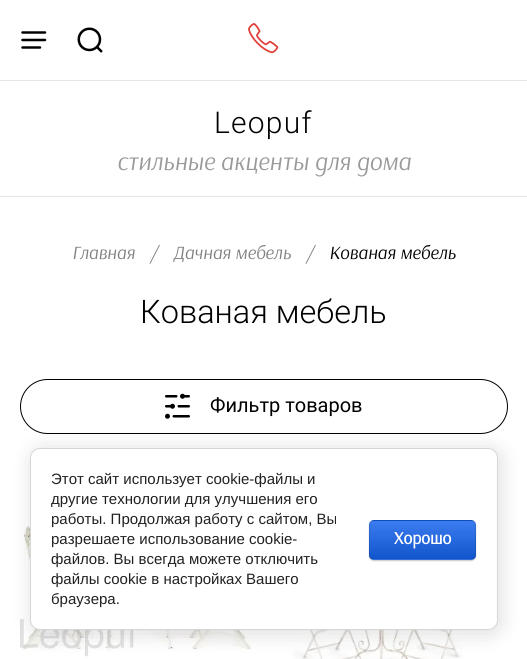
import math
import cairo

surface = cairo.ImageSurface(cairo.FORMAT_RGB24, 527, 659)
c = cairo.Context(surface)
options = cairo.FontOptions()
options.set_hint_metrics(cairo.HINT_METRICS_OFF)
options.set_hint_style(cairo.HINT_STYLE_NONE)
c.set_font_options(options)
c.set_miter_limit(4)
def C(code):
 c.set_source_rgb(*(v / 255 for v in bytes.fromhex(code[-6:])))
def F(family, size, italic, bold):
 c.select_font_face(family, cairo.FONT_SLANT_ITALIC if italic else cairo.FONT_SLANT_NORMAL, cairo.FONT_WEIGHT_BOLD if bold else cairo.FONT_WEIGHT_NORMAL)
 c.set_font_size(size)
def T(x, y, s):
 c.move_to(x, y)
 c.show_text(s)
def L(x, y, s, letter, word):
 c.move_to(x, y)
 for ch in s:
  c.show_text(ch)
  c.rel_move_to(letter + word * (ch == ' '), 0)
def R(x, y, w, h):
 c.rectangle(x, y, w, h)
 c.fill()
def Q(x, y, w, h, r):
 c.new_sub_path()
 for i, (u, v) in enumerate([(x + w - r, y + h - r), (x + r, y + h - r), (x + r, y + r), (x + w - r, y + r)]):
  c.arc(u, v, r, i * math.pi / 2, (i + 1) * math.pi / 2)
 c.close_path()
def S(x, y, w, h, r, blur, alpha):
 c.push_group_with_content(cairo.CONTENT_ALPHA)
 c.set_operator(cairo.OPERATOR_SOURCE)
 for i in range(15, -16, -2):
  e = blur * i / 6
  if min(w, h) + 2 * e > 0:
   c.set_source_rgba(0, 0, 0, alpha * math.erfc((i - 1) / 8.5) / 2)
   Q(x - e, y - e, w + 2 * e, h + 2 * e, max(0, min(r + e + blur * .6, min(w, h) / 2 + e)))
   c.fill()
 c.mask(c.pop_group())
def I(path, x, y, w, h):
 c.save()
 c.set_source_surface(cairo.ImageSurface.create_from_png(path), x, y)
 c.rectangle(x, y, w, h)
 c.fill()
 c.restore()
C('ffffff')
c.paint()
C('e6e6e6')
R(0,196,527,1)
R(0,80,527,1)
I('1.png',21,31,26,18)
I('2.png',77,27,26,26)
I('3.png',248,23,31,31)
F('Roboto Light',30,0,0)
C('000000')
L(214,133,'Leopuf',1.25,0)
F('Arsenal',25,1,0)
C('999999')
T(117,170,'стильные акценты для дома')
F('Arsenal',18.75,1,0)
C('808080')
T(72,259,'Главная')
T(150,259,'/')
T(173,259,'Дачная мебель')
T(306,259,'/')
C('000000')
T(329,259,'Кованая мебель')
F('Roboto Light',32.5,0,0)
T(140,323,'Кованая мебель')
Q(20.5,379.5,487,54,27)
c.set_line_width(1)
c.stroke()
I('4.png',165,393,25,26)
F('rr',20,0,0)
T(210,412,'Фильтр товаров')
I('5.png',20,526,231,131)
I('6.png',293,630,170,29)
C('000000')
S(33,450,467,183,10,11,.14)
C('ffffff')
Q(30.5,448.5,467,181,9.5)
c.fill_preserve()
C('d6d6d6')
c.stroke()
F('Liberation Sans',15,0,0)
C('212121')
T(51,484,'Этот сайт использует cookie-файлы и')
T(51,504,'другие технологии для улучшения его')
T(51,524,'работы. Продолжая работу с сайтом, Вы')
T(51,544,'разрешаете использование cookie-')
T(51,564,'файлов. Вы всегда можете отключить')
T(51,584,'файлы cookie в настройках Вашего')
T(51,604,'браузера.')
C('000000')
S(369,521,107,40,5,.5,.2)
c.save()
Q(369,520,107,40,5)
c.clip()
gradient = cairo.LinearGradient(423,484,423,521)
gradient.add_color_stop_rgba(0,0.231,0.486,0.937,1)
gradient.add_color_stop_rgba(1,0.067,0.333,0.8,1)
c.set_source(gradient)
R(369,520,107,1)
gradient = cairo.LinearGradient(423,521,423,559)
gradient.add_color_stop_rgba(0,0.231,0.486,0.937,1)
gradient.add_color_stop_rgba(1,0.067,0.333,0.8,1)
c.set_source(gradient)
R(369,521,107,38)
gradient = cairo.LinearGradient(423,559,423,596)
gradient.add_color_stop_rgba(0,0.231,0.486,0.937,1)
gradient.add_color_stop_rgba(1,0.067,0.333,0.8,1)
c.set_source(gradient)
R(369,559,107,1)
c.restore()
Q(369.5,520.5,106,39,4.5)
c.set_source_rgba(0,0,0,0.1)
c.stroke()
F('Arsenal',17.5,0,1)
C('ffffff')
T(394,544,'Хорошо')
surface.write_to_png('o.png')
